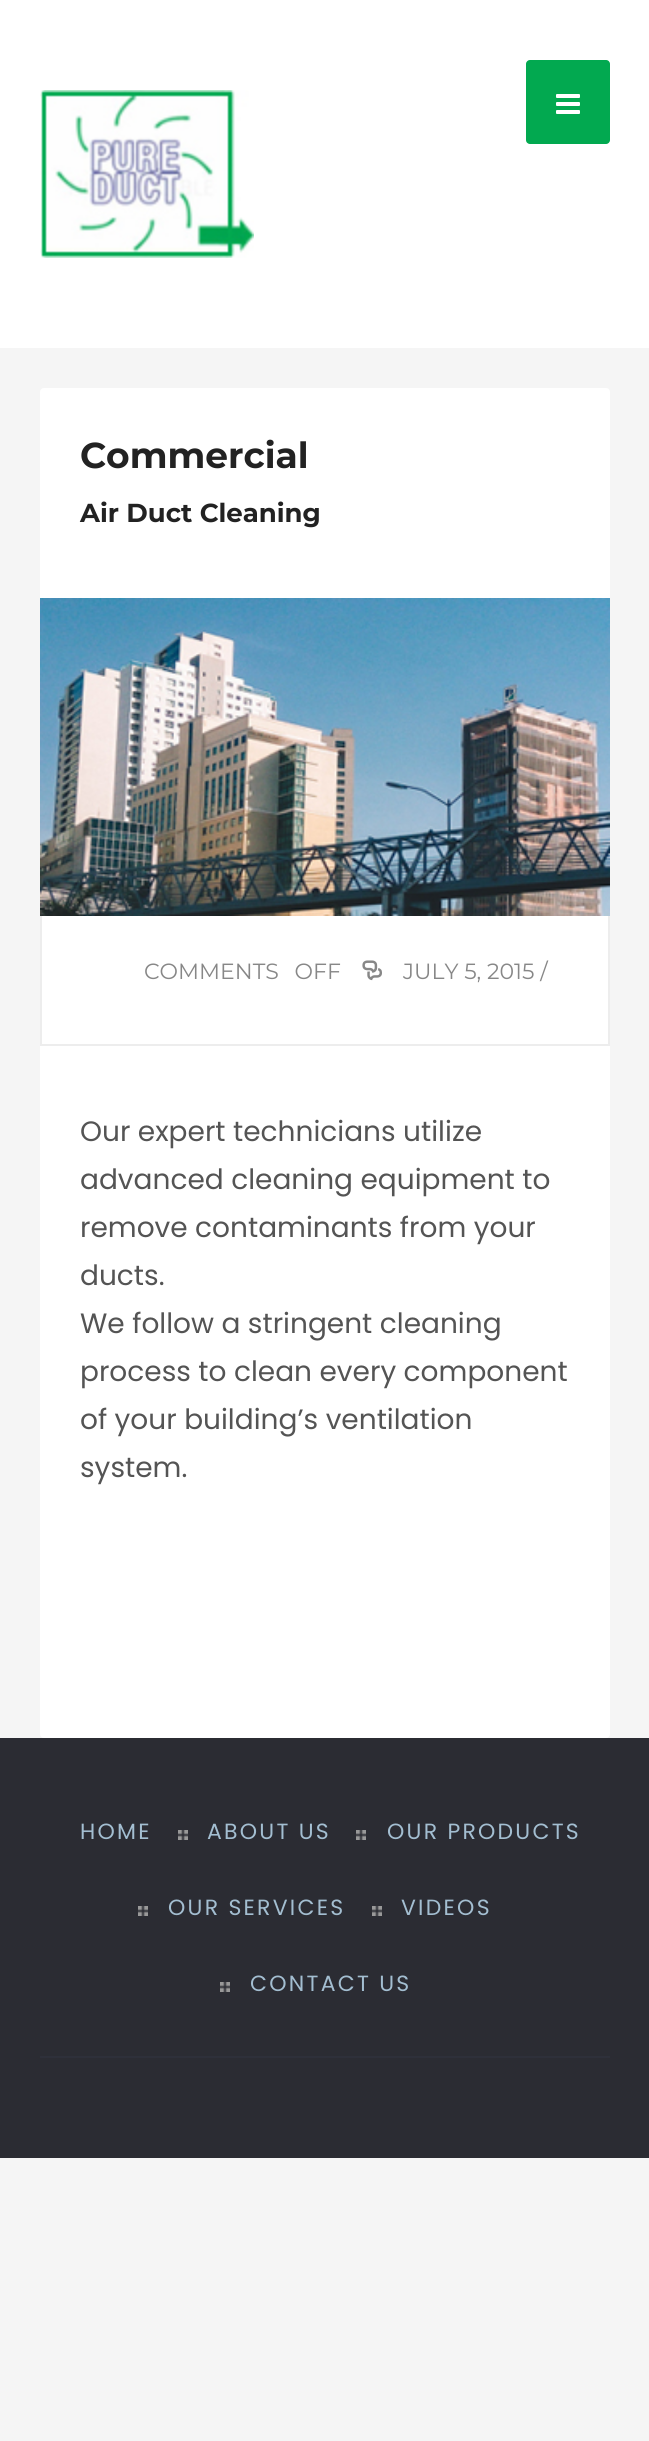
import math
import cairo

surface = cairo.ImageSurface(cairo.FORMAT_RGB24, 649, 2441)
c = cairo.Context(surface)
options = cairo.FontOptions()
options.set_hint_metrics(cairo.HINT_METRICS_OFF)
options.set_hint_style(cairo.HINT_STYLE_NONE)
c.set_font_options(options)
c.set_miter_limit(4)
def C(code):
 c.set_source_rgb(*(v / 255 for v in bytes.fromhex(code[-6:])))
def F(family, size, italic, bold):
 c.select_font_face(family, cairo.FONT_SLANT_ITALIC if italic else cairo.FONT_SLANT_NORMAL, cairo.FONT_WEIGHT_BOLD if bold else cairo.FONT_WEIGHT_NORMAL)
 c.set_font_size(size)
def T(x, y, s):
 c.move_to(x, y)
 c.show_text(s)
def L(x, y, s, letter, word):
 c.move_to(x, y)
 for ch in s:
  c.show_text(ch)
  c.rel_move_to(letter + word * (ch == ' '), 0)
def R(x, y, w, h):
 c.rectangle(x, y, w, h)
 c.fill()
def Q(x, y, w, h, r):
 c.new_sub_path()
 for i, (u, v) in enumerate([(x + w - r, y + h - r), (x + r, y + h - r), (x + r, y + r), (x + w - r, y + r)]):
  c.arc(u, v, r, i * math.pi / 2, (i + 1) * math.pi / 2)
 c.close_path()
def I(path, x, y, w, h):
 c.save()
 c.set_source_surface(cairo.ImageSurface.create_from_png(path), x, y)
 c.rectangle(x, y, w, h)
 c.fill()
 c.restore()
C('f5f5f5')
c.paint()
C('ffffff')
R(0,0,649,348)
I('1.png',40,90,214,168)
C('02a950')
Q(526,60,84,84,4)
c.fill()
I('2.png',556,94,24,20)
C('ffffff')
Q(40,388,570,1350,4)
c.fill()
F('Montserrat',36,0,1)
C('222222')
T(80,468,'Commercial')
F('Montserrat',26,0,1)
T(80,522,'Air Duct Cleaning')
I('3.png',40,598,570,318)
C('ededed')
R(608,916,2,130)
R(40,1044,570,2)
R(40,916,2,130)
F('Montserrat',22,0,0)
C('878787')
L(144,979,'COMMENTS OFF',0,10)
I('4.png',362,960,20,21)
T(403,979,'JULY 5, 2015 /')
F('Poppins',28,0,0)
C('545454')
T(80,1141,'Our expert technicians utilize')
T(80,1189,'advanced cleaning equipment to')
T(80,1237,'remove contaminants from your')
T(80,1285,'ducts.')
T(80,1333,'We follow a stringent cleaning')
T(80,1381,'process to clean every component')
T(80,1429,'of your building’s ventilation')
T(80,1477,'system.')
C('2b2c33')
R(0,1738,649,420)
F('Poppins',22,0,0)
C('a3bed1')
L(80,1839,'HOME',2.25,0)
I('5.png',178,1830,10,10)
L(207,1839,'ABOUT US',2.25,0)
I('5.png',356,1830,10,10)
L(387,1839,'OUR PRODUCTS',2.25,0)
I('5.png',138,1906,10,10)
L(168,1915,'OUR SERVICES',2.25,0)
I('5.png',372,1906,10,10)
L(401,1915,'VIDEOS',2.25,0)
I('5.png',220,1982,10,10)
L(250,1991,'CONTACT US',2.25,0)
C('2e303a')
R(40,2056,570,2)
surface.write_to_png('o.png')
